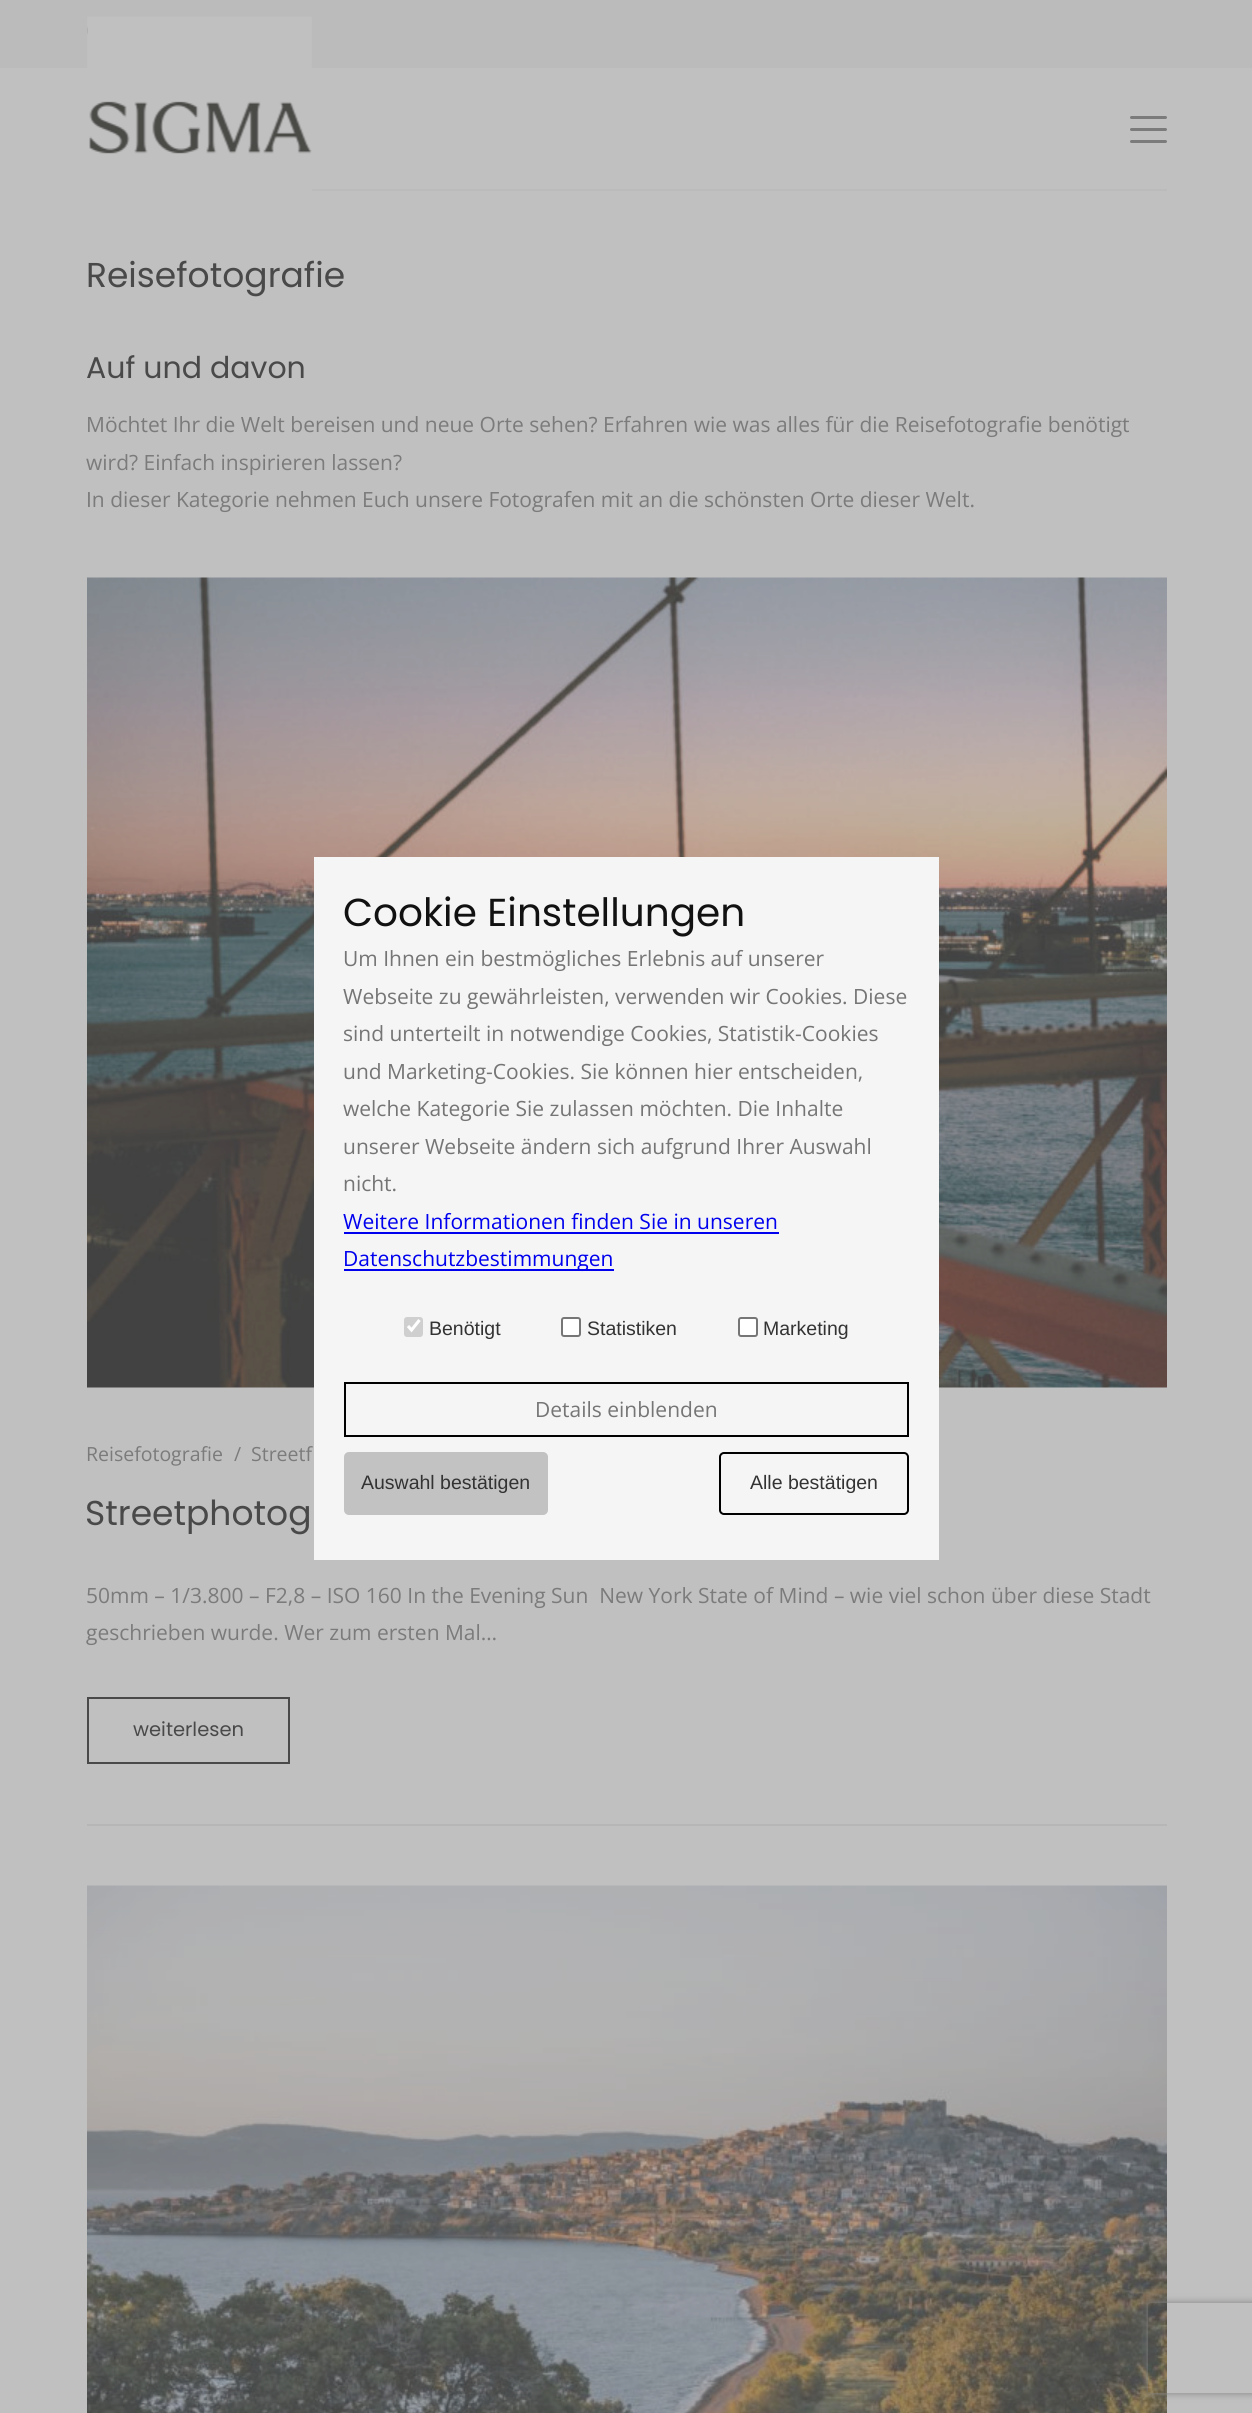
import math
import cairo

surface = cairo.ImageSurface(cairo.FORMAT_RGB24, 1252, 2413)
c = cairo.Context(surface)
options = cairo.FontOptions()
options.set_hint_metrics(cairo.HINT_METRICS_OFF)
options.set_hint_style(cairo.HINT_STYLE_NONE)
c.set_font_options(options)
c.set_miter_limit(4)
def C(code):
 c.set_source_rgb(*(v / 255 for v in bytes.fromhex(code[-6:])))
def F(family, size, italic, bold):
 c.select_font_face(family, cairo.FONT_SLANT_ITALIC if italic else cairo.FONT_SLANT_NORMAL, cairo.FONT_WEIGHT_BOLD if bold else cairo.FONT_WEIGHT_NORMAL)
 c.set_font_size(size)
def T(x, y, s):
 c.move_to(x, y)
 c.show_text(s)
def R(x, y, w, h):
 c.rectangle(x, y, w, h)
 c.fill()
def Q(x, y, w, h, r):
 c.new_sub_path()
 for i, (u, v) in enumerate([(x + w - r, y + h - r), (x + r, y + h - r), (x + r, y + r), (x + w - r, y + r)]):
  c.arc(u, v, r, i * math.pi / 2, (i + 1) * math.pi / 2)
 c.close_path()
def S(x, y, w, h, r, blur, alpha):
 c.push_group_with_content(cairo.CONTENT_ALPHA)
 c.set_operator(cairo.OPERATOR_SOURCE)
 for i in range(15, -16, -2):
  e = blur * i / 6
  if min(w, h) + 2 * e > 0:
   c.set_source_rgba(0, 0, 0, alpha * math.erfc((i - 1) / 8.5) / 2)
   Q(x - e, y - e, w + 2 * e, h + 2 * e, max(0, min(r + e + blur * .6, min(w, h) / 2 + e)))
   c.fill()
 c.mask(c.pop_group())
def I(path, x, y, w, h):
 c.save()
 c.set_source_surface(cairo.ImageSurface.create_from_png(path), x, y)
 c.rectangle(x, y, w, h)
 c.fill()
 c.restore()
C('c0c0c0')
c.paint()
C('bbbbbb')
R(0,0,1252,68)
I('1.png',87,26,1,9)
R(87,189,1080,2)
I('2.png',87,16,225,175)
C('7b7b7b')
Q(1130,116,37,3,1.5)
c.fill()
Q(1130,128,37,3,1.5)
c.fill()
Q(1130,140,37,3,1.5)
c.fill()
F('Poppins',34.5,0,0)
C('494949')
T(86,287,'Reisefotografie')
F('Poppins',30,0,0)
T(86,378,'Auf und davon')
F('Open Sans',21,0,0)
C('7b7b7b')
T(86,432,'Möchtet Ihr die Welt bereisen und neue Orte sehen? Erfahren wie was alles für die Reisefotografie benötigt')
T(86,470,'wird? Einfach inspirieren lassen?')
T(86,507,'In dieser Kategorie nehmen Euch unsere Fotografen mit an die schönsten Orte dieser Welt.')
I('3.png',87,577,1080,811)
F('Open Sans',19.5,0,0)
T(86,1461,'Reisefotografie')
T(234,1461,'/')
T(251,1461,'Streetf')
F('Poppins',34.5,0,0)
C('494949')
T(85,1525,'Streetphotog')
F('Open Sans',21,0,0)
C('7b7b7b')
T(86,1603,'50mm – 1/3.800 – F2,8 – ISO 160 In the Evening Sun  New York State of Mind – wie viel schon über diese Stadt')
T(86,1640,'geschrieben wurde. Wer zum ersten Mal…')
c.rectangle(88,1698,201,65)
C('494949')
c.stroke()
F('Poppins',19.5,0,0)
T(133,1736,'weiterlesen')
C('b6b6b6')
R(87,1824,1080,2)
I('4.png',87,1885,1080,528)
C('f5f5f5')
R(314,857,625,703)
F('Poppins',39,0,0)
C('111111')
T(343,926,'Cookie Einstellungen')
F('Open Sans',21,0,0)
C('757575')
T(343,966,'Um Ihnen ein bestmögliches Erlebnis auf unserer')
T(343,1004,'Webseite zu gewährleisten, verwenden wir Cookies. Diese')
T(343,1041,'sind unterteilt in notwendige Cookies, Statistik-Cookies')
T(343,1079,'und Marketing-Cookies. Sie können hier entscheiden,')
T(343,1116,'welche Kategorie Sie zulassen möchten. Die Inhalte')
T(343,1154,'unserer Webseite ändern sich aufgrund Ihrer Auswahl')
T(343,1191,'nicht.')
C('0000ee')
T(343,1229,'Weitere Informationen finden Sie in unseren')
R(344,1232,435,2)
R(344,1269,270,2)
T(343,1266,'Datenschutzbestimmungen')
C('cfcfcf')
Q(404,1317,19,20,3)
c.fill()
c.new_path()
c.move_to(408,1326)
c.line_to(411.5,1330)
c.line_to(419.5,1320)
C('ffffff')
c.set_line_width(3.1)
c.stroke()
F('Liberation Sans',19.5,0,0)
C('333333')
T(429,1335,'Benötigt')
C('ffffff')
Q(562,1318,18,18,2)
c.fill_preserve()
C('767676')
c.set_line_width(2)
c.stroke()
C('333333')
T(587,1335,'Statistiken')
C('ffffff')
Q(739,1318,18,18,2)
c.fill_preserve()
C('767676')
c.stroke()
C('333333')
T(763,1335,'Marketing')
c.rectangle(345,1383,563,53)
C('000000')
c.stroke()
F('Open Sans',21,0,0)
C('757575')
T(535,1417,'Details einblenden')
C('c2c2c2')
Q(344,1452,204,63,5)
c.fill()
F('Liberation Sans',19.5,0,0)
C('333333')
T(361,1489,'Auswahl bestätigen')
Q(720,1453,188,61,4)
C('000000')
c.stroke()
C('333333')
T(750,1489,'Alle bestätigen')
c.save()
c.set_fill_rule(cairo.FILL_RULE_EVEN_ODD)
c.new_path()
c.move_to(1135,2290)
c.line_to(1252,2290)
c.line_to(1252,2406)
c.line_to(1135,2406)
c.close_path()
c.move_to(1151,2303)
c.line_to(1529,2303)
c.curve_to(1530.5,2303,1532,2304.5,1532,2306)
c.line_to(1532,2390)
c.curve_to(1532,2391.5,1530.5,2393,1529,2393)
c.line_to(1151,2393)
c.curve_to(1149.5,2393,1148,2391.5,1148,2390)
c.line_to(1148,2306)
c.curve_to(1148,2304.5,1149.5,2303,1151,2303)
c.close_path()
c.clip()
C('818181')
S(1148,2303,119,90,3,4,1)
c.restore()
surface.write_to_png('o.png')
